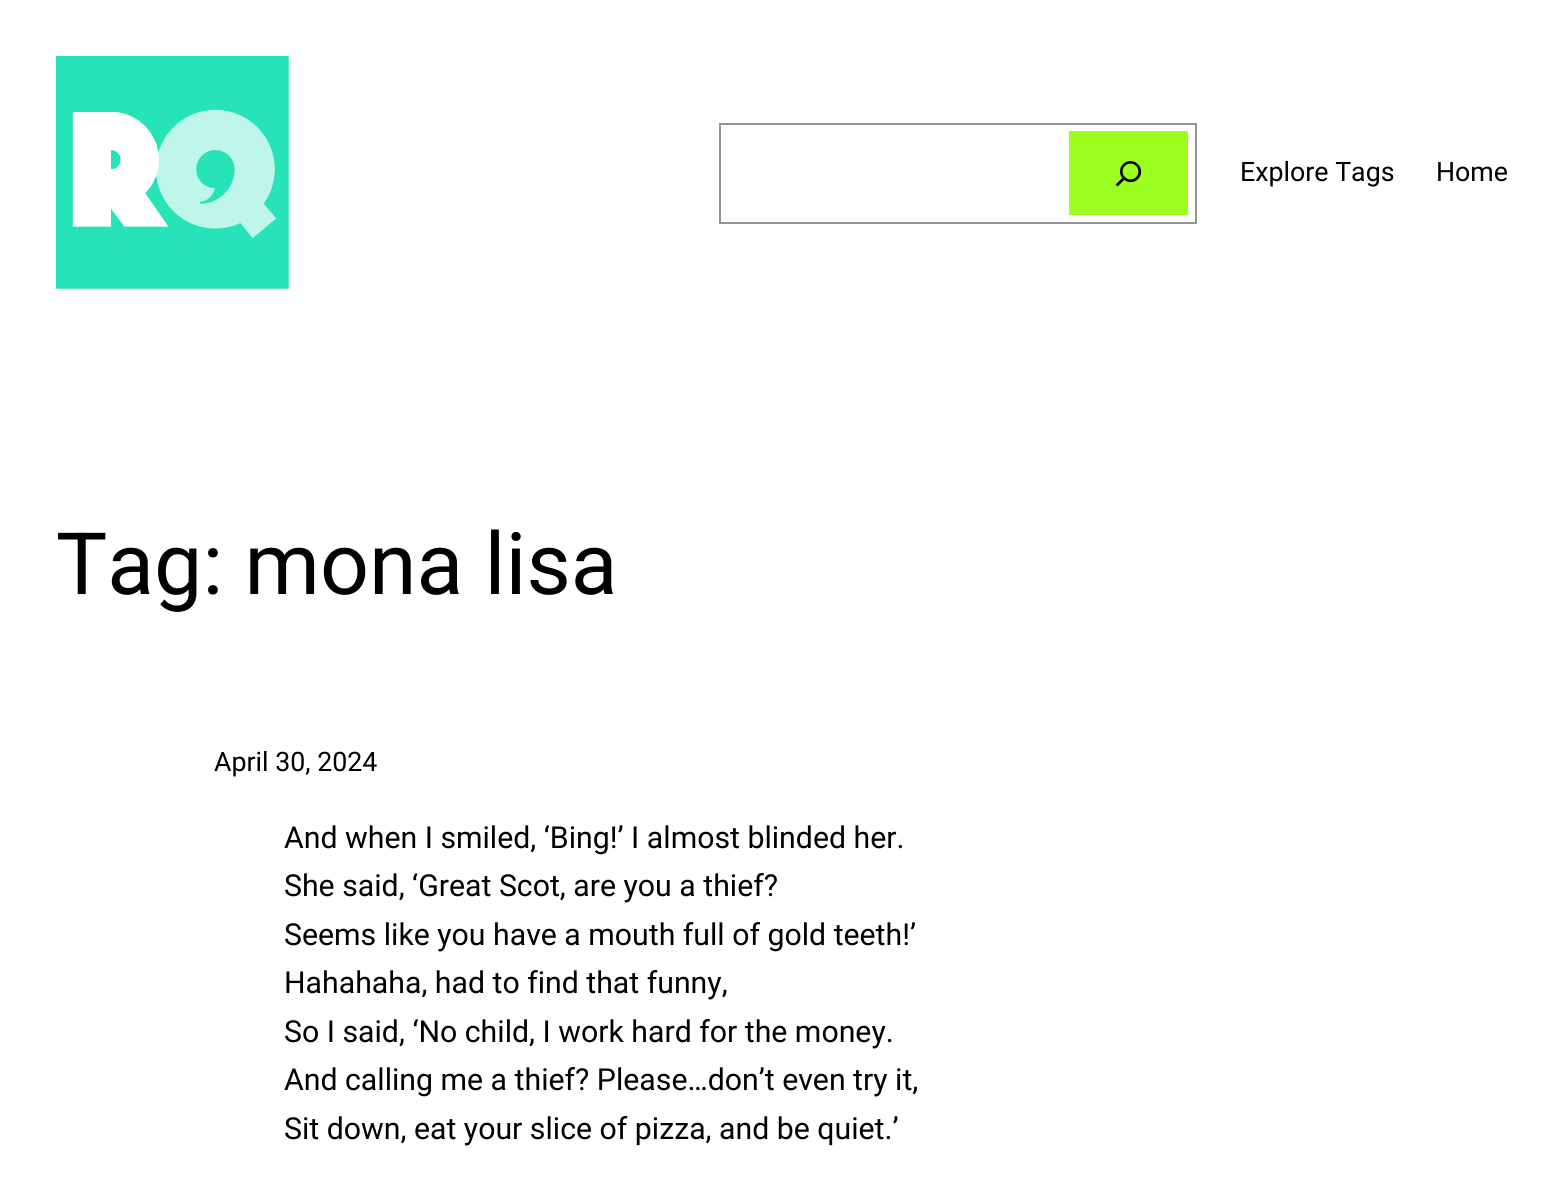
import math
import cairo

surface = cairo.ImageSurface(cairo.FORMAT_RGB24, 1563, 1191)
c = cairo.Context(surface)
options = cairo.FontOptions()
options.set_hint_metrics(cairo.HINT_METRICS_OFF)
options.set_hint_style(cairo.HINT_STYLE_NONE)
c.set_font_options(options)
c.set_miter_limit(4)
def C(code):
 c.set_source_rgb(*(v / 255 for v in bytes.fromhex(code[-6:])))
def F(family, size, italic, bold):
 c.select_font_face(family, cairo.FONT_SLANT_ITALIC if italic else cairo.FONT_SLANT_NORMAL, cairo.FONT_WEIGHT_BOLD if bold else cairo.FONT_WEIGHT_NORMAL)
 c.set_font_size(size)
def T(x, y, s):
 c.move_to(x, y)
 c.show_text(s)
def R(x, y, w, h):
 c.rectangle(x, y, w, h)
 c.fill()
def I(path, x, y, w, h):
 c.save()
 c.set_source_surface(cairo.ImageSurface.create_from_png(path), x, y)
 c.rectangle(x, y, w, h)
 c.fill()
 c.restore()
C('ffffff')
c.paint()
I('1.png',56,56,233,233)
c.rectangle(720,124,476,99)
C('949494')
c.stroke()
C('9dff20')
R(1069,131,119,84)
I('2.png',1115,161,27,26)
F('Roboto',26.75,0,0)
C('000000')
T(1240,181,'Explore Tags')
T(1436,181,'Home')
F('Roboto',86,0,0)
T(56,594,'Tag: mona lisa')
F('Roboto',26.75,0,0)
T(214,771,'April 30, 2024')
F('Roboto',30.25,0,0)
T(284,848,'And when I smiled, ‘Bing!’ I almost blinded her.')
T(284,896,'She said, ‘Great Scot, are you a thief?')
T(284,945,'Seems like you have a mouth full of gold teeth!’')
T(284,993,'Hahahaha, had to find that funny,')
T(284,1042,'So I said, ‘No child, I work hard for the money.')
T(284,1090,'And calling me a thief? Please…don’t even try it,')
T(284,1139,'Sit down, eat your slice of pizza, and be quiet.’')
surface.write_to_png('o.png')
